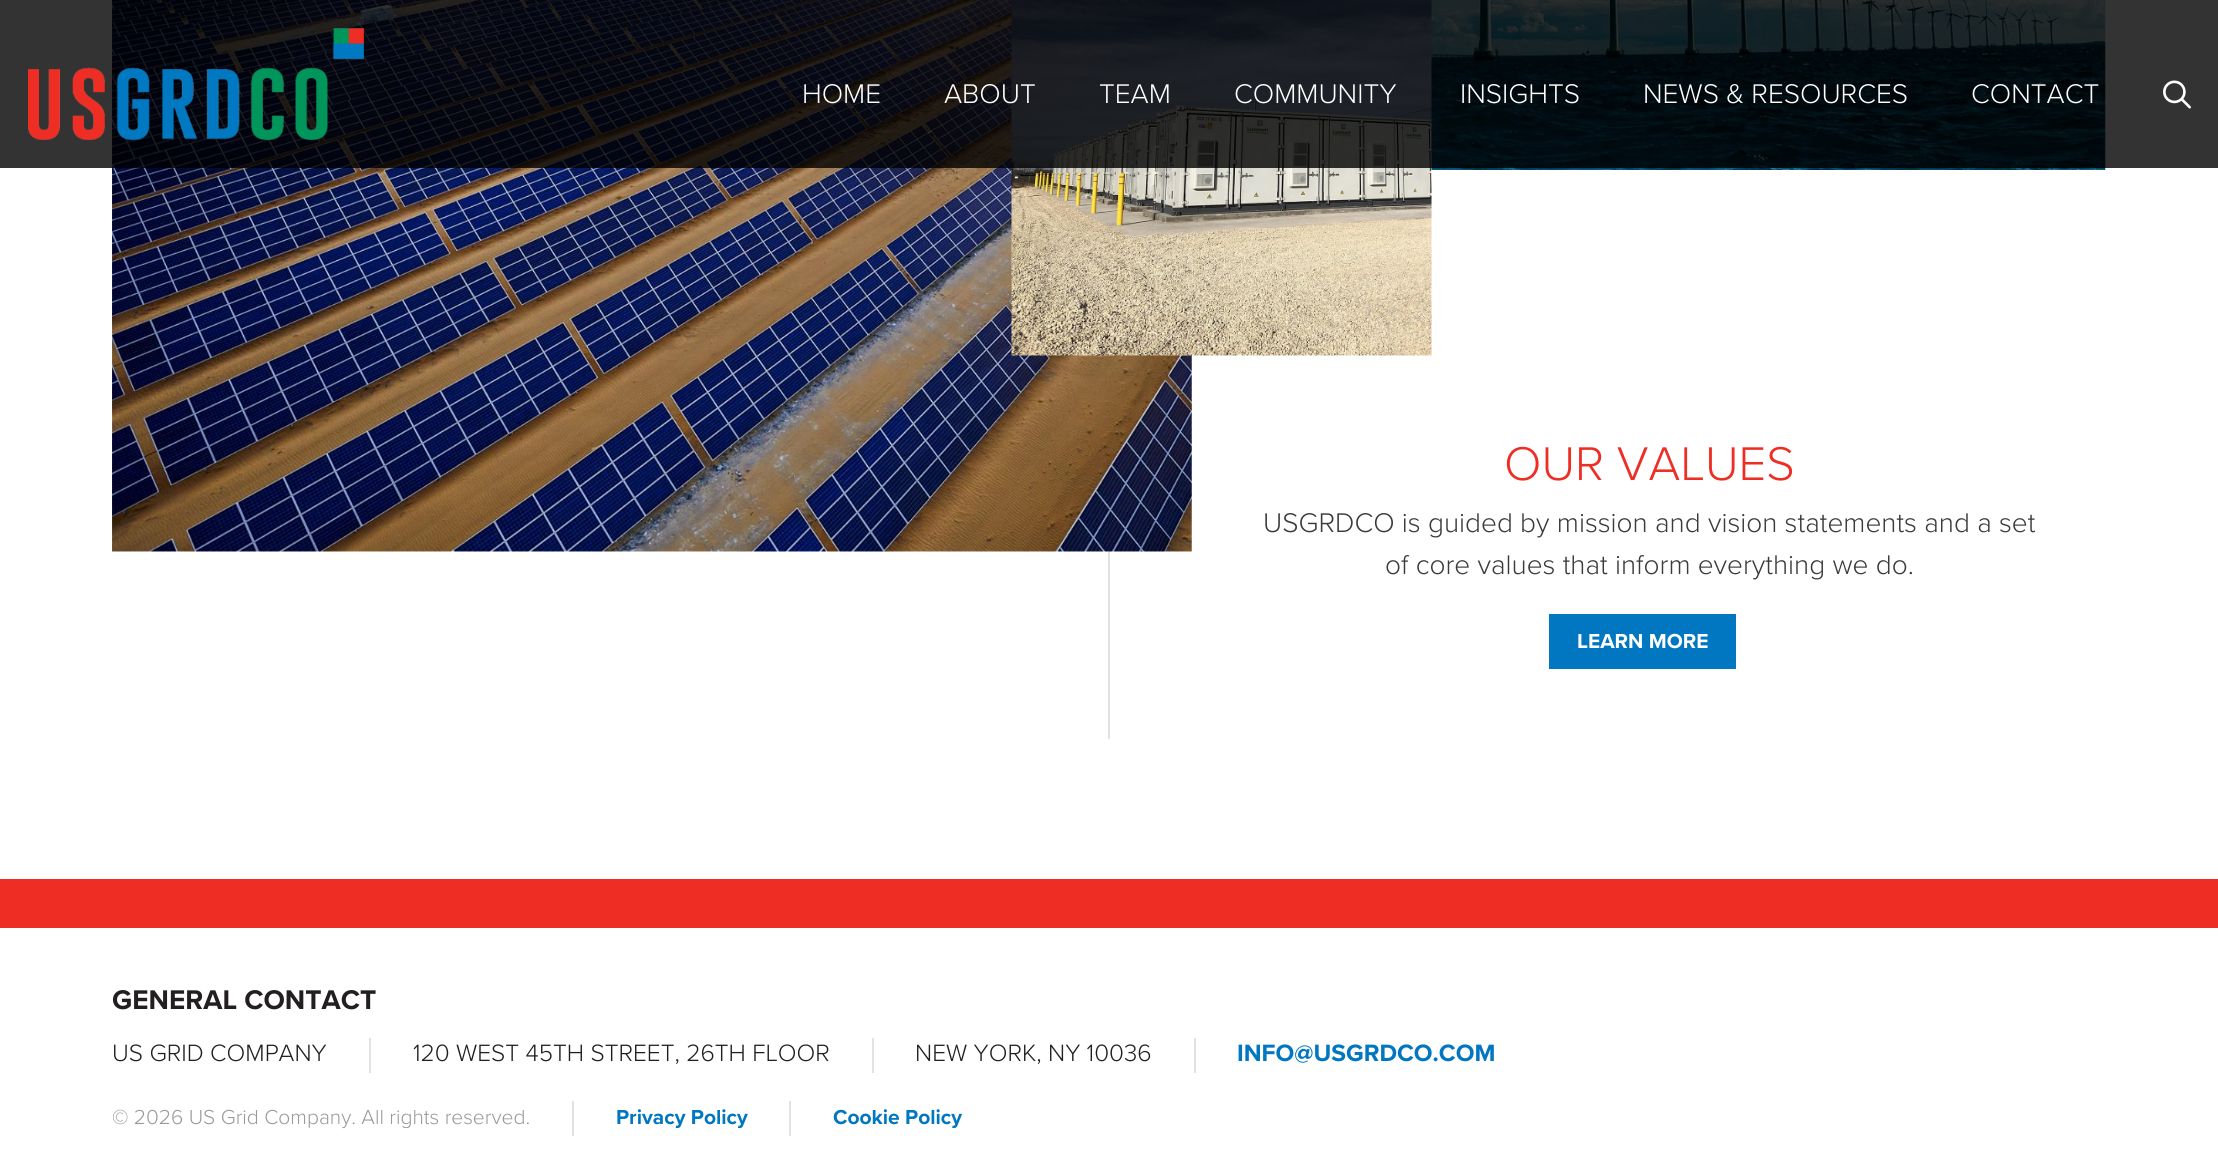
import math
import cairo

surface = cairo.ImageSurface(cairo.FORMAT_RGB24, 2218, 1171)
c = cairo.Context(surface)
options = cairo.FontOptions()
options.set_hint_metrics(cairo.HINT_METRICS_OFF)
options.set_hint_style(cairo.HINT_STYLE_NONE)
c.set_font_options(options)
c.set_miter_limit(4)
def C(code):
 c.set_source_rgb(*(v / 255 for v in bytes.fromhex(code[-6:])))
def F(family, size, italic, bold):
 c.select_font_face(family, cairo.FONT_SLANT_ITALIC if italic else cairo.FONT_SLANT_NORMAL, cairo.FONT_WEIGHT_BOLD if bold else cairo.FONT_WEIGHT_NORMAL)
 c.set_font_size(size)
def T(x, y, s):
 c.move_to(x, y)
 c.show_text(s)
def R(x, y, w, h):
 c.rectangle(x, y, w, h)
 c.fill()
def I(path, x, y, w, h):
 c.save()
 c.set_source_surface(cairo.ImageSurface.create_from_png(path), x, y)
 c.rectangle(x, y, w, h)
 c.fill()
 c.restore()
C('ffffff')
c.paint()
C('e2e2e2')
R(1108,551,2,188)
I('3.png',112,0,1080,552)
I('5.png',1431,0,675,170)
I('4.png',1011,0,421,356)
c.set_source_rgba(0,0,0,0.8)
R(0,0,2218,168)
I('1.png',28,28,336,112)
F('Proxima Nova Light',28,0,0)
C('ffffff')
T(802,103,'HOME')
T(944,103,'ABOUT')
T(1099,103,'TEAM')
T(1234,103,'COMMUNITY')
T(1460,103,'INSIGHTS')
T(1643,103,'NEWS & RESOURCES')
T(1971,103,'CONTACT')
I('2.png',2163,80,28,29)
F('Proxima Nova Light',49,0,0)
C('ee2e24')
T(1504,480,'OUR VALUES')
F('Proxima Nova Light',28,0,0)
C('3b3b3b')
T(1263,532,'USGRDCO is guided by mission and vision statements and a set')
T(1385,574,'of core values that inform everything we do.')
C('0077c0')
R(1549,614,187,55)
F('Proxima Nova',21,0,1)
C('ffffff')
T(1577,648,'LEARN MORE')
C('ee2e24')
R(0,879,2218,49)
F('Proxima Nova',28,0,1)
C('231f20')
T(112,1009,'GENERAL CONTACT')
C('e2e2e2')
R(369,1038,2,35)
F('Proxima Nova Light',24.5,0,0)
C('231f20')
T(112,1061,'US GRID COMPANY')
C('e2e2e2')
R(872,1038,2,35)
C('231f20')
T(413,1061,'120 WEST 45TH STREET, 26TH FLOOR')
C('e2e2e2')
R(1194,1038,2,35)
C('231f20')
T(915,1061,'NEW YORK, NY 10036')
F('Proxima Nova',24.5,0,1)
C('0077c0')
T(1237,1061,'INFO@USGRDCO.COM')
C('e2e2e2')
R(572,1101,2,35)
F('Proxima Nova Light',21,0,0)
C('999999')
T(112,1124,'© 2026 US Grid Company. All rights reserved.')
C('e2e2e2')
R(789,1101,2,35)
F('Proxima Nova',21,0,1)
C('0077c0')
T(616,1124,'Privacy Policy')
T(833,1124,'Cookie Policy')
surface.write_to_png('o.png')
